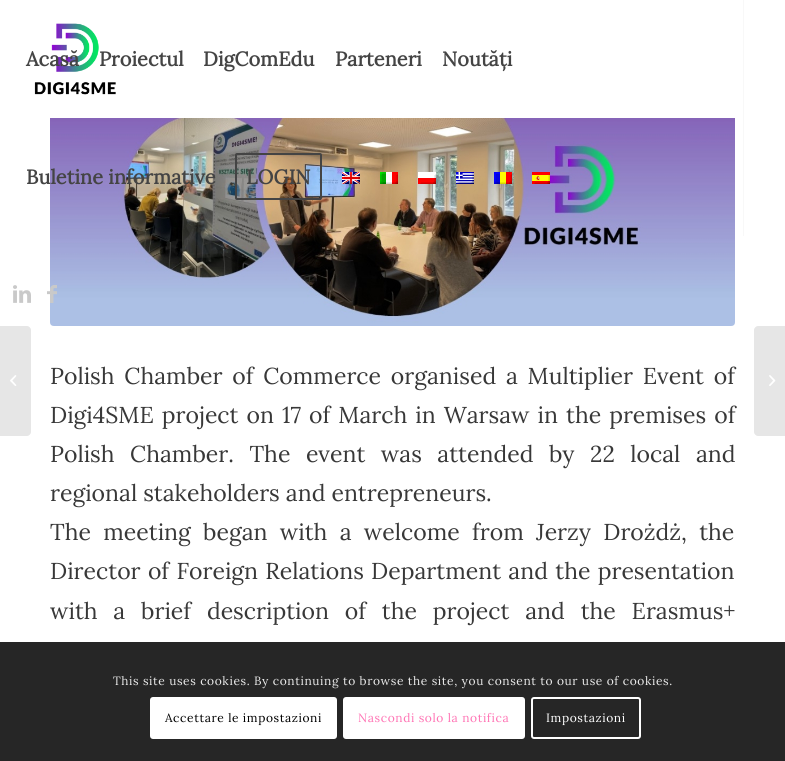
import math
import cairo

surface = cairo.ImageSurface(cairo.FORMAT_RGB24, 785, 761)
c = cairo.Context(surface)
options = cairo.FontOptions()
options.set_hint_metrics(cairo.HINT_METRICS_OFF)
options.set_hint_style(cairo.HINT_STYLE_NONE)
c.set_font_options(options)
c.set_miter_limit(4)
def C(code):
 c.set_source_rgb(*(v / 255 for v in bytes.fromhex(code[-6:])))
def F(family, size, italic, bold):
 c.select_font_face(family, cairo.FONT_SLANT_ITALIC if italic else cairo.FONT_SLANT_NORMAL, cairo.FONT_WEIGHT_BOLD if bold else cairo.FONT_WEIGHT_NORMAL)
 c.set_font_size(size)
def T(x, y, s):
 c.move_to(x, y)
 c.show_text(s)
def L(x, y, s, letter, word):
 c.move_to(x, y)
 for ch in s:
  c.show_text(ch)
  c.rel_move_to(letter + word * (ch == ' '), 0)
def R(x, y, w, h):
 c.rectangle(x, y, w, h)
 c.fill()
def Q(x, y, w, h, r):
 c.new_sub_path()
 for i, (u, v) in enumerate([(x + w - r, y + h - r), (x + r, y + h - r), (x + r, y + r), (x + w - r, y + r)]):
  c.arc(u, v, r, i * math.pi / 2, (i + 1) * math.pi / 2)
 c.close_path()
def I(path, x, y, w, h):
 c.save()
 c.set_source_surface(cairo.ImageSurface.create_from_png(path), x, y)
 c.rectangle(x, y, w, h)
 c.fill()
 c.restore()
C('ffffff')
c.paint()
I('1.png',34,23,82,72)
C('f8f8f8')
R(743,0,1,236)
F('Lora',20,0,1)
C('444444')
T(26,66,'Acasă')
T(99,66,'Proiectul')
T(203,66,'DigComEdu')
T(335,66,'Parteneri')
T(442,66,'Noutăți')
I('11.png',50,118,685,208)
T(26,184,'Buletine informative')
Q(236,154,85,45,1)
c.stroke()
T(246,184,'LOGIN')
I('2.png',342,172,18,12)
I('3.png',380,172,18,12)
I('4.png',418,172,18,12)
I('5.png',456,172,18,12)
I('6.png',494,172,18,12)
I('7.png',532,172,18,12)
I('8.png',13,285,18,18)
I('9.png',47,285,10,18)
C('e6e6e6')
c.new_path()
c.move_to(0,326)
c.line_to(27,326)
c.curve_to(29,326,31,328,31,330)
c.line_to(31,432)
c.curve_to(31,434,29,436,27,436)
c.line_to(0,436)
c.close_path()
c.fill()
I('10.png',10,375,7,11)
F('Lora',23,0,0)
C('383838')
L(50,384,'Polish Chamber of Commerce organised a Multiplier Event of',0,3.75)
L(50,423,'Digi4SME project on 17 of March in Warsaw in the premises of',0,2)
L(50,462,'Polish Chamber. The event was attended by 22 local and',0,9.5)
T(50,501,'regional stakeholders and entrepreneurs.')
L(50,540,'The meeting began with a welcome from Jerzy Drożdż, the',0,6.25)
L(50,579,'Director of Foreign Relations Department and the presentation',0,1.25)
L(50,619,'with a brief description of the project and the Erasmus+',0,9.75)
C('e6e6e6')
c.new_path()
c.move_to(758,326)
c.line_to(785,326)
c.line_to(785,436)
c.line_to(758,436)
c.curve_to(756,436,754,434,754,432)
c.line_to(754,330)
c.curve_to(754,328,756,326,758,326)
c.close_path()
c.fill()
I('12.png',769,375,7,11)
c.set_source_rgba(0,0,0,0.85)
R(0,642,785,119)
F('Lora',12,0,0)
C('e9e9e9')
L(113,685,'This site uses cookies. By continuing to browse the site, you consent to our use of cookies.',.6,0)
C('ffffff')
Q(150,697,187,42,3)
c.fill()
C('000000')
L(165,722,'Accettare le impostazioni',.6,0)
C('ffffff')
Q(344,698,180,40,2)
c.fill_preserve()
c.stroke()
C('ff75b5')
L(358,722,'Nascondi solo la notifica',.6,0)
Q(532,698,108,40,2)
C('ffffff')
c.stroke()
L(546,722,'Impostazioni',.6,0)
surface.write_to_png('o.png')
